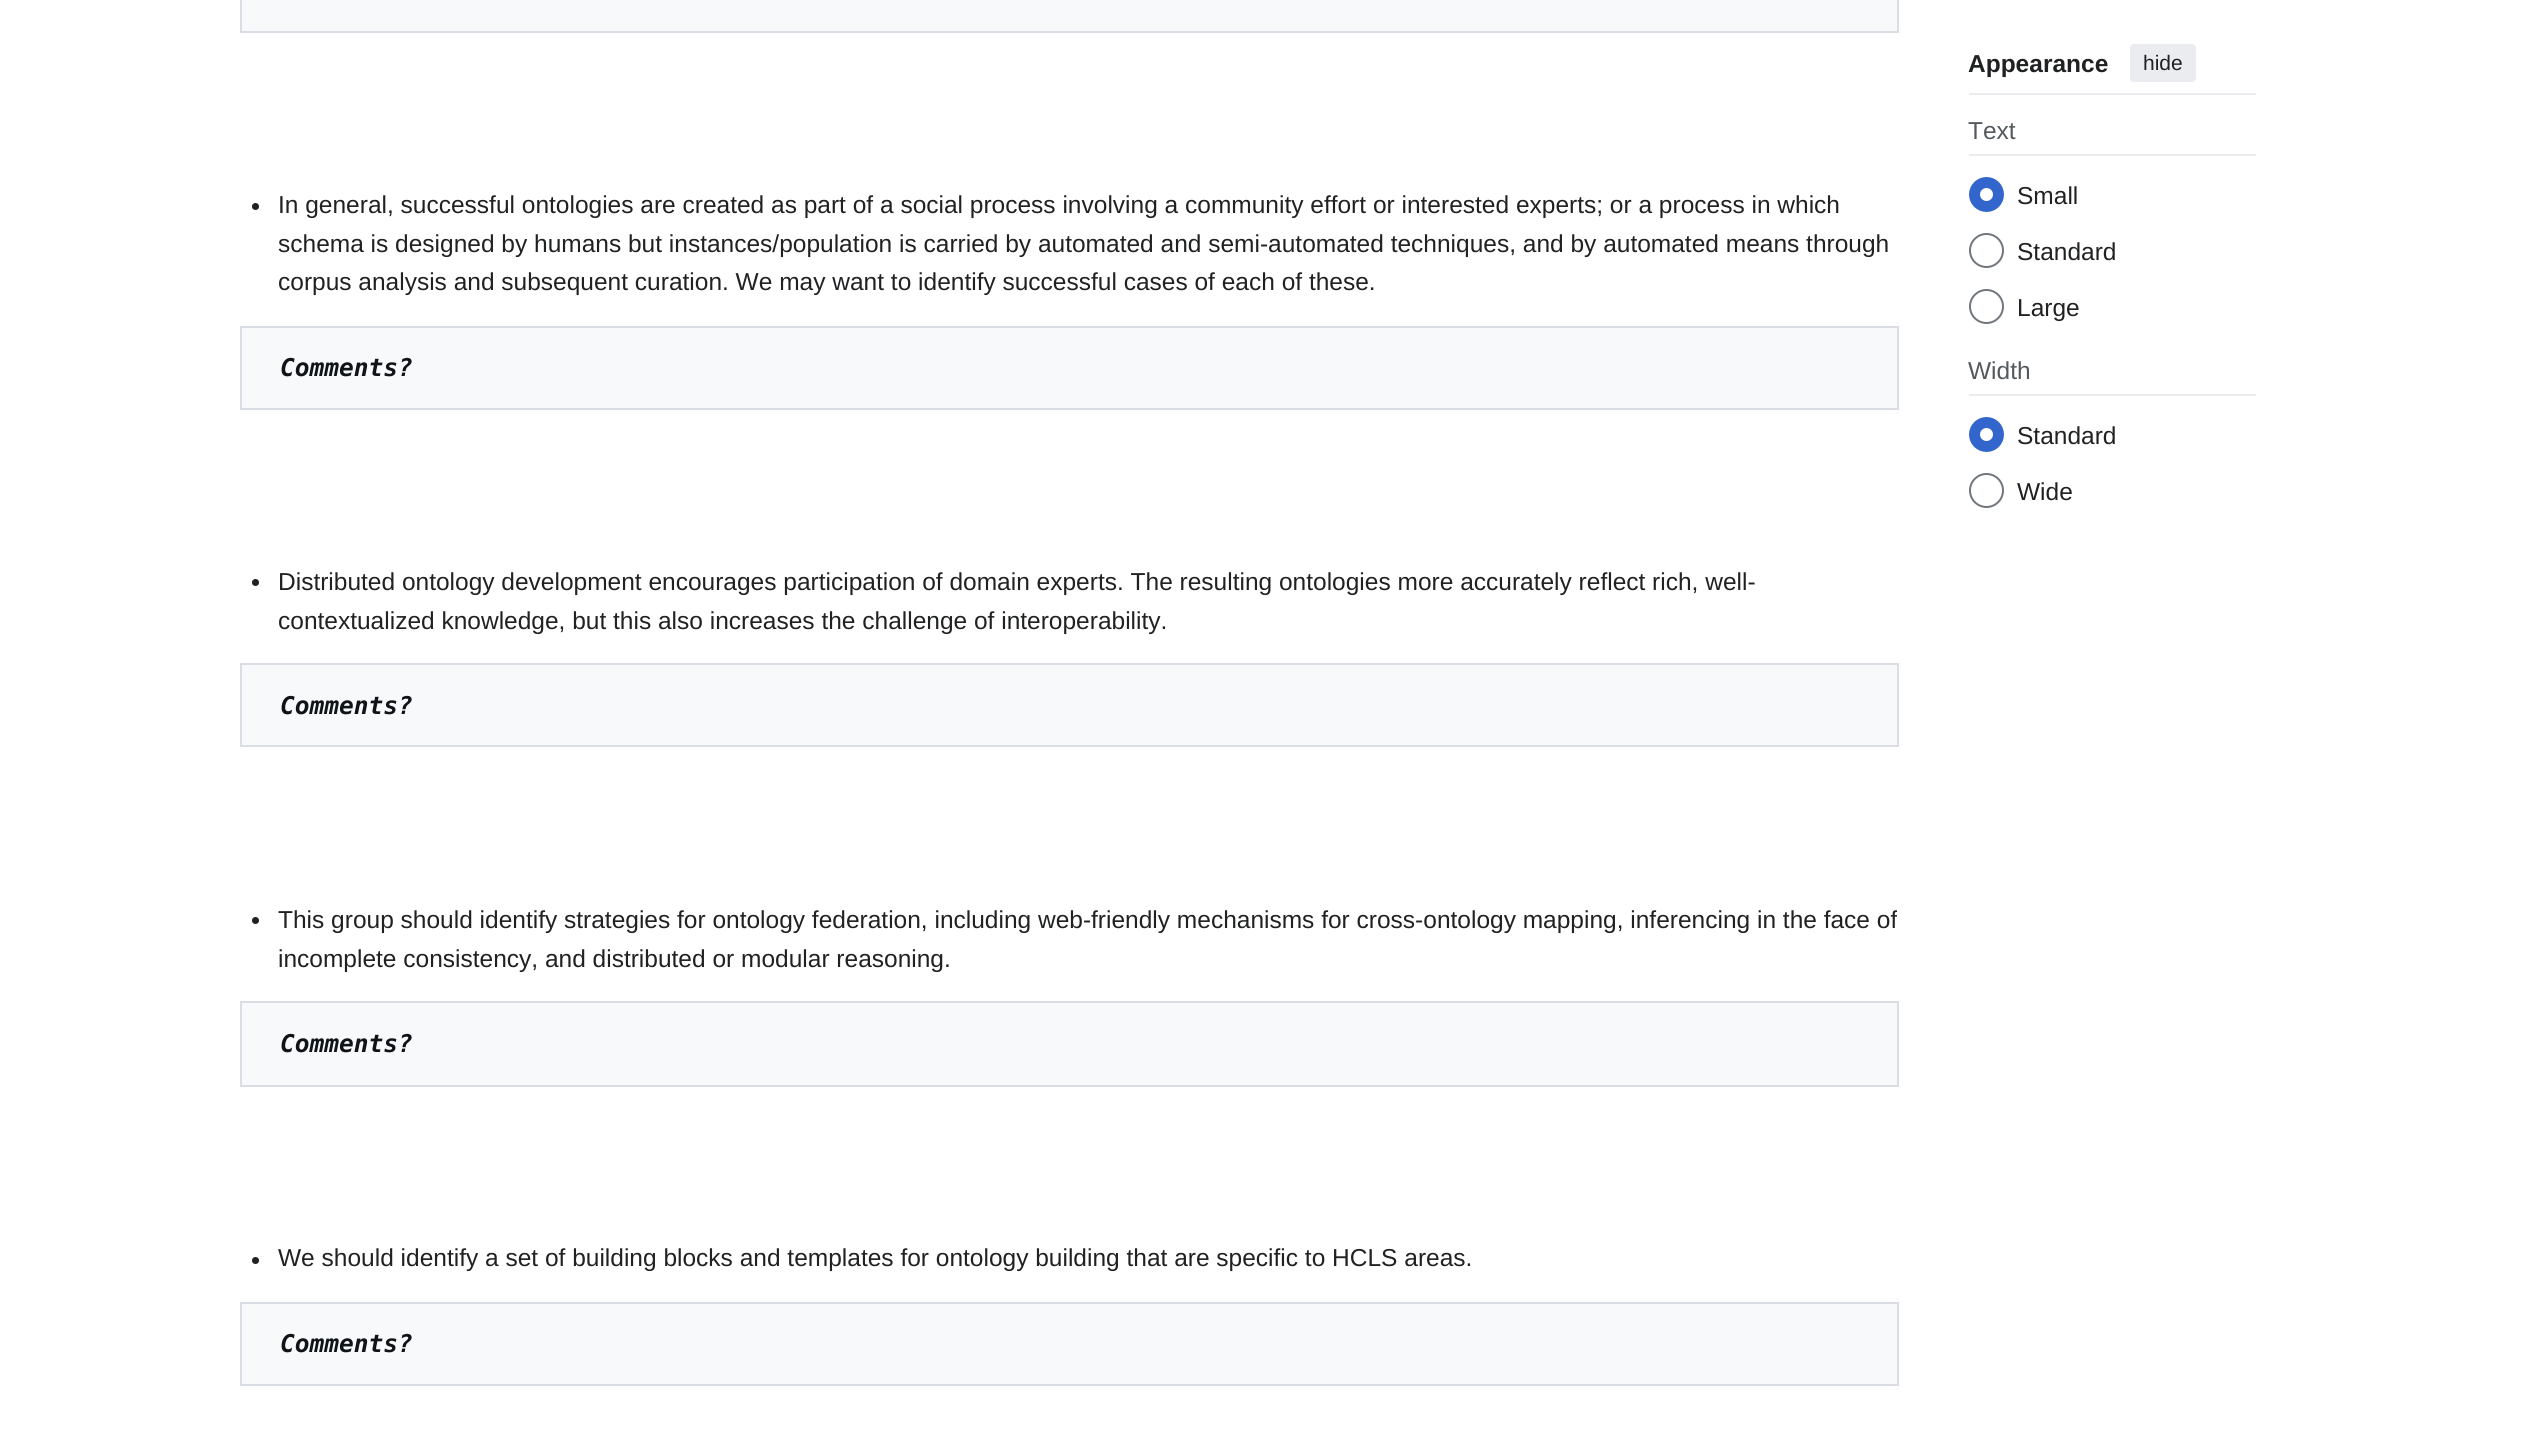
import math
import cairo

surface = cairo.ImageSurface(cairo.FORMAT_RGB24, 2521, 1444)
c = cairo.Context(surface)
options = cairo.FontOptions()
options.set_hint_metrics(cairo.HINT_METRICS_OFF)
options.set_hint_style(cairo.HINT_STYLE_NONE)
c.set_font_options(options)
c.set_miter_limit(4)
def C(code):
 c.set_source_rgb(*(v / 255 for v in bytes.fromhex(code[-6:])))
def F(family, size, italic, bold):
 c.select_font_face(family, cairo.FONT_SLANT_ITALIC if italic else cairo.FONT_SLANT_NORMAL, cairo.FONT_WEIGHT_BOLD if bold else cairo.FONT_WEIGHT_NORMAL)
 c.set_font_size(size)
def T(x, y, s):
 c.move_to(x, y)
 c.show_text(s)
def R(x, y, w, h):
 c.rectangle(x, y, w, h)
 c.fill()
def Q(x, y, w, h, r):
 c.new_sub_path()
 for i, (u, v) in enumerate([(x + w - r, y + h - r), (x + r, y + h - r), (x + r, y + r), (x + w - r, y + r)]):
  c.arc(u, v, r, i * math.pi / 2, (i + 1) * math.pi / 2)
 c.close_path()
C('ffffff')
c.paint()
C('f8f9fa')
c.rectangle(241,-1,1657,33)
c.fill_preserve()
C('dadde3')
c.stroke()
C('202122')
c.arc(255.5,206.5,3.5,0,2 * math.pi)
c.fill()
F('Liberation Sans',24.5,0,0)
T(278,213,'In general, successful ontologies are created as part of a social process involving a community effort or interested experts; or a process in which')
T(278,252,'schema is designed by humans but instances/population is carried by automated and semi-automated techniques, and by automated means through')
T(278,290,'corpus analysis and subsequent curation. We may want to identify successful cases of each of these.')
C('f8f9fa')
c.rectangle(241,327,1657,82)
c.fill_preserve()
C('dadde3')
c.stroke()
F('DejaVu Sans Mono',24.5,1,1)
C('101418')
T(280,376,'Comments?')
C('202122')
c.new_path()
c.arc(255.5,582.5,3.5,0,2 * math.pi)
c.fill()
F('Liberation Sans',24.5,0,0)
T(278,590,'Distributed ontology development encourages participation of domain experts. The resulting ontologies more accurately reflect rich, well-')
T(278,629,'contextualized knowledge, but this also increases the challenge of interoperability.')
C('f8f9fa')
c.rectangle(241,664,1657,82)
c.fill_preserve()
C('dadde3')
c.stroke()
F('DejaVu Sans Mono',24.5,1,1)
C('101418')
T(280,714,'Comments?')
C('202122')
c.new_path()
c.arc(255.5,920.5,3.5,0,2 * math.pi)
c.fill()
F('Liberation Sans',24.5,0,0)
T(278,928,'This group should identify strategies for ontology federation, including web-friendly mechanisms for cross-ontology mapping, inferencing in the face of')
T(278,967,'incomplete consistency, and distributed or modular reasoning.')
C('f8f9fa')
c.rectangle(241,1002,1657,84)
c.fill_preserve()
C('dadde3')
c.stroke()
F('DejaVu Sans Mono',24.5,1,1)
C('101418')
T(280,1052,'Comments?')
C('202122')
c.new_path()
c.arc(255.5,1260.5,3.5,0,2 * math.pi)
c.fill()
F('Liberation Sans',24.5,0,0)
T(278,1266,'We should identify a set of building blocks and templates for ontology building that are specific to HCLS areas.')
C('f8f9fa')
c.rectangle(241,1303,1657,82)
c.fill_preserve()
C('dadde3')
c.stroke()
F('DejaVu Sans Mono',24.5,1,1)
C('101418')
T(280,1352,'Comments?')
C('eaecf0')
R(1969,93,287,2)
F('Liberation Sans',24.5,0,1)
C('202122')
T(1968,72,'Appearance')
C('eaecf0')
Q(2130,44,66,38,4)
c.fill()
F('Liberation Sans',21,0,0)
C('202122')
T(2143,70,'hide')
C('eaecf0')
R(1969,154,287,2)
F('Liberation Sans',24.5,0,0)
C('54595d')
T(1968,139,'Text')
c.new_path()
c.arc(1986.5,194.5,12,0,2 * math.pi)
C('3366cc')
c.set_line_width(11)
c.stroke()
C('202122')
T(2017,204,'Small')
c.new_path()
c.arc(1986.5,250.5,16.5,0,2 * math.pi)
C('72777d')
c.set_line_width(2)
c.stroke()
C('202122')
T(2017,260,'Standard')
c.new_path()
c.arc(1986.5,306.5,16.5,0,2 * math.pi)
C('72777d')
c.stroke()
C('202122')
T(2017,316,'Large')
C('eaecf0')
R(1969,394,287,2)
C('54595d')
T(1968,379,'Width')
c.new_path()
c.arc(1986.5,434.5,12,0,2 * math.pi)
C('3366cc')
c.set_line_width(11)
c.stroke()
C('202122')
T(2017,444,'Standard')
c.new_path()
c.arc(1986.5,490.5,16.5,0,2 * math.pi)
C('72777d')
c.set_line_width(2)
c.stroke()
C('202122')
T(2017,500,'Wide')
surface.write_to_png('o.png')
